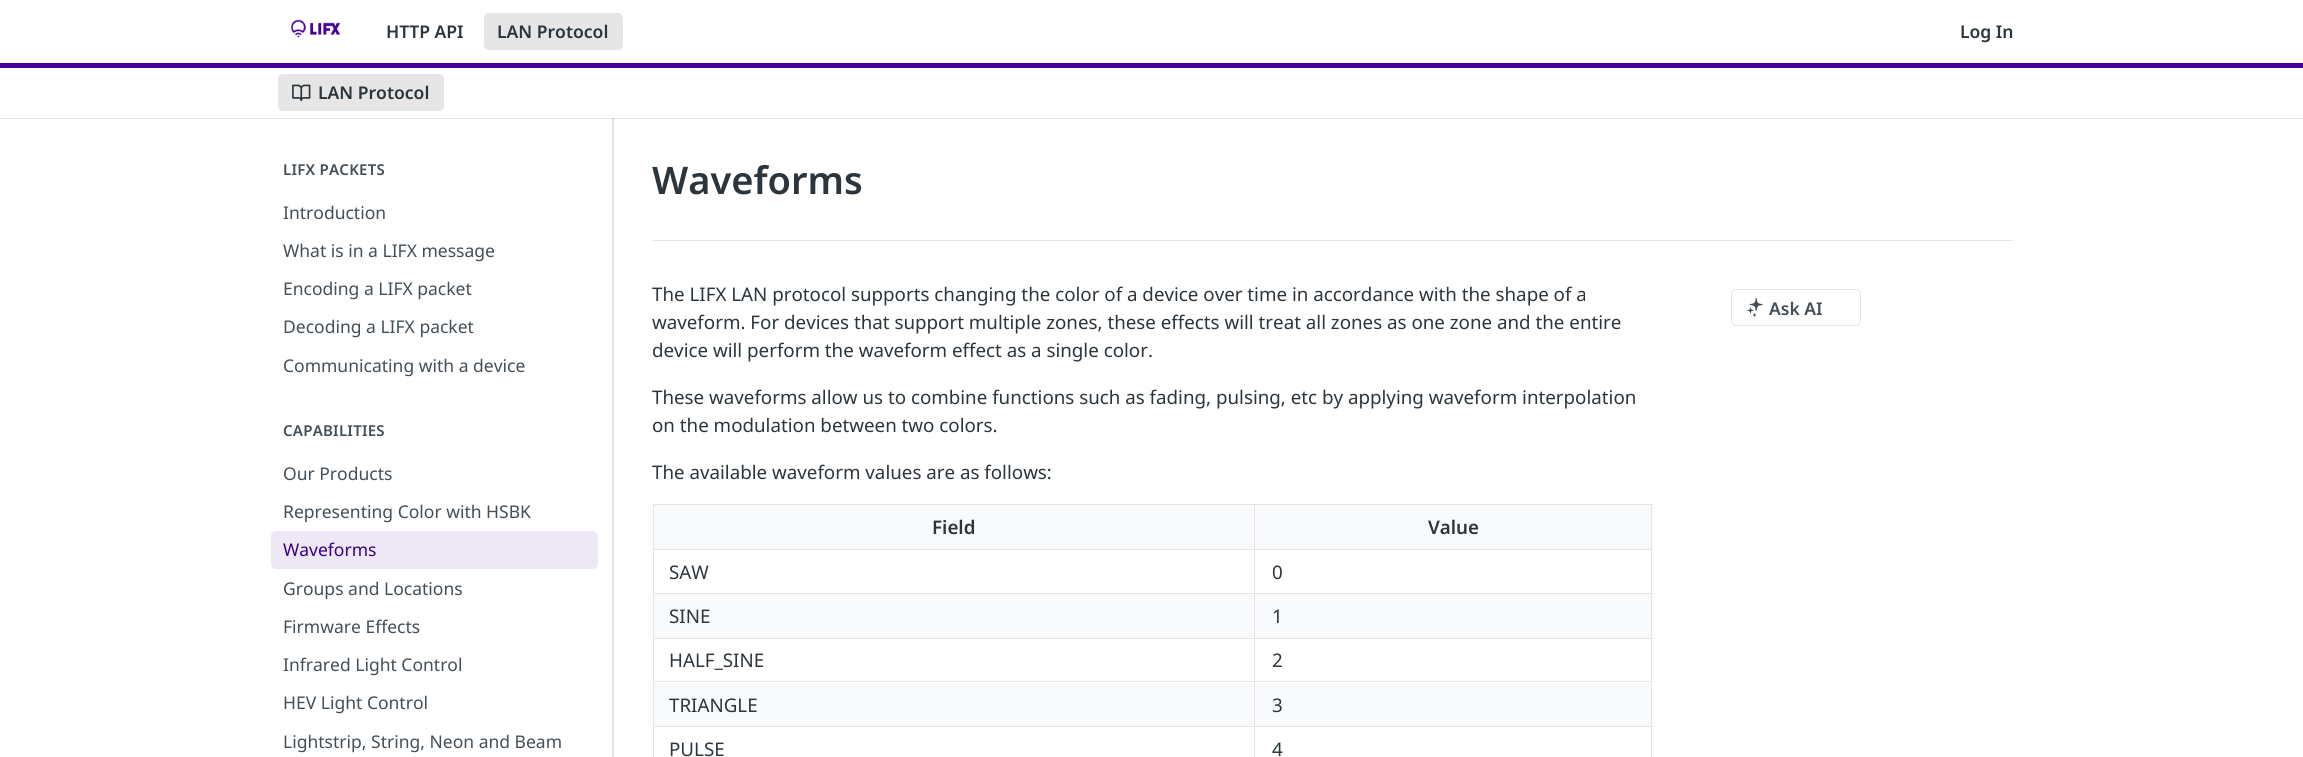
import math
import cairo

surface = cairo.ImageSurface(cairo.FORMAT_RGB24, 2303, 757)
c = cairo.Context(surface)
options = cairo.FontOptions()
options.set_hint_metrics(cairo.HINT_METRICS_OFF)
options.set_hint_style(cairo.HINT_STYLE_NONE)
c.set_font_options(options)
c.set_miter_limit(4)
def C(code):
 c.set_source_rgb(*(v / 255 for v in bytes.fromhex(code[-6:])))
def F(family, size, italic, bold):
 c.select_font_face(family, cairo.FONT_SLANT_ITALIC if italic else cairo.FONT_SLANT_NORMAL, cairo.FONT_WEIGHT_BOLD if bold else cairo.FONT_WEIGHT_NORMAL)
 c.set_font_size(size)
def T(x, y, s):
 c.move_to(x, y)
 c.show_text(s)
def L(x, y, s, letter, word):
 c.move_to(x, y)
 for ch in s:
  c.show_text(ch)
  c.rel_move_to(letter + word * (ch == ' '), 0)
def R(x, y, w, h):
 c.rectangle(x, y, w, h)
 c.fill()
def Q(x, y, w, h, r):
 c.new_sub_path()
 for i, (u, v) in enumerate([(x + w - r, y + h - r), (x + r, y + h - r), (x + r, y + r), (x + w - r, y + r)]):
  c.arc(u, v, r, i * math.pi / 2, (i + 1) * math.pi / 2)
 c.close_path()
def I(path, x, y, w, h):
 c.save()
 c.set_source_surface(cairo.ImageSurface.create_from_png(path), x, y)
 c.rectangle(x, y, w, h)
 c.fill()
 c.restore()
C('ffffff')
c.paint()
C('e6e6e6')
R(612,118,2,639)
c.set_source_rgba(0,0,0,0.1)
c.new_path()
c.move_to(0,118)
c.line_to(0,119)
c.line_to(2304,119)
c.line_to(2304,1)
c.line_to(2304,118)
c.close_path()
c.fill()
C('440099')
R(0,63,2303,5)
I('1.png',291,19,50,19)
F('Noto Sans SemiBold',17.5,0,0)
C('2b353b')
T(386,38,'HTTP API')
C('e6e6e6')
Q(484,13,139,37,5)
c.fill()
C('2b353b')
T(497,38,'LAN Protocol')
T(1960,38,'Log In')
C('e6e6e6')
Q(278,74,166,37,5)
c.fill()
I('2.png',292,84,19,18)
C('2b353b')
T(318,99,'LAN Protocol')
F('Noto Sans SemiBold',15,0,0)
C('434e56')
L(283,175,'LIFX PACKETS',.25,0)
F('Noto Sans',17.5,0,0)
T(283,219,'Introduction')
T(283,257,'What is in a LIFX message')
T(283,295,'Encoding a LIFX packet')
T(283,333,'Decoding a LIFX packet')
T(283,372,'Communicating with a device')
F('Noto Sans SemiBold',15,0,0)
L(283,436,'CAPABILITIES',.25,0)
F('Noto Sans',17.5,0,0)
T(283,480,'Our Products')
T(283,518,'Representing Color with HSBK')
C('eee8f6')
Q(271,531,327,38,5)
c.fill()
C('390080')
T(283,556,'Waveforms')
C('434e56')
T(283,595,'Groups and Locations')
T(283,633,'Firmware Effects')
T(283,671,'Infrared Light Control')
T(283,709,'HEV Light Control')
T(283,748,'Lightstrip, String, Neon and Beam')
C('e6e6e6')
R(653,240,1360,1)
F('Noto Sans SemiBold',38,0,0)
C('2b353b')
T(652,194,'Waveforms')
F('Noto Sans',18.75,0,0)
T(652,301,'The LIFX LAN protocol supports changing the color of a device over time in accordance with the shape of a')
T(652,329,'waveform. For devices that support multiple zones, these effects will treat all zones as one zone and the entire')
T(652,357,'device will perform the waveform effect as a single color.')
T(652,404,'These waveforms allow us to combine functions such as fading, pulsing, etc by applying waveform interpolation')
T(652,432,'on the modulation between two colors.')
T(652,479,'The available waveform values are as follows:')
C('e5e5e5')
R(653,504,1000,1)
c.save()
c.rectangle(653,504,1000,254)
c.clip()
C('f9fafb')
c.new_path()
c.move_to(656,549)
c.line_to(1655,549)
c.line_to(1655,505)
c.line_to(1651,505)
c.line_to(1651,549)
c.close_path()
c.fill()
c.restore()
R(1651,504,1,253)
R(653,504,1,253)
C('f9fafb')
R(654,505,997,44)
F('Noto Sans SemiBold',18.75,0,0)
C('2b353b')
T(932,534,'Field')
C('e5e5e5')
R(1254,549,399,1)
R(653,593,1000,1)
C('f9fafb')
R(654,594,997,44)
C('e5e5e5')
R(653,638,1000,1)
C('f9fafb')
R(654,683,997,43)
C('e5e5e5')
R(653,681,1000,1)
R(653,726,1000,1)
R(1254,593,1,164)
R(1254,549,1,45)
R(653,549,602,1)
R(1254,504,1,46)
C('2b353b')
T(1428,534,'Value')
F('Noto Sans',18.75,0,0)
T(669,579,'SAW')
T(1272,579,'0')
T(669,623,'SINE')
T(1272,623,'1')
T(669,667,'HALF_SINE')
T(1272,667,'2')
T(669,712,'TRIANGLE')
T(1272,712,'3')
T(669,756,'PULSE')
T(1272,756,'4')
Q(1731.5,289.5,129,36,4.5)
C('e6e6e6')
c.set_line_width(1)
c.stroke()
I('3.png',1747,298,16,19)
F('Noto Sans SemiBold',17.5,0,0)
C('434e56')
T(1769,315,'Ask AI')
surface.write_to_png('o.png')
